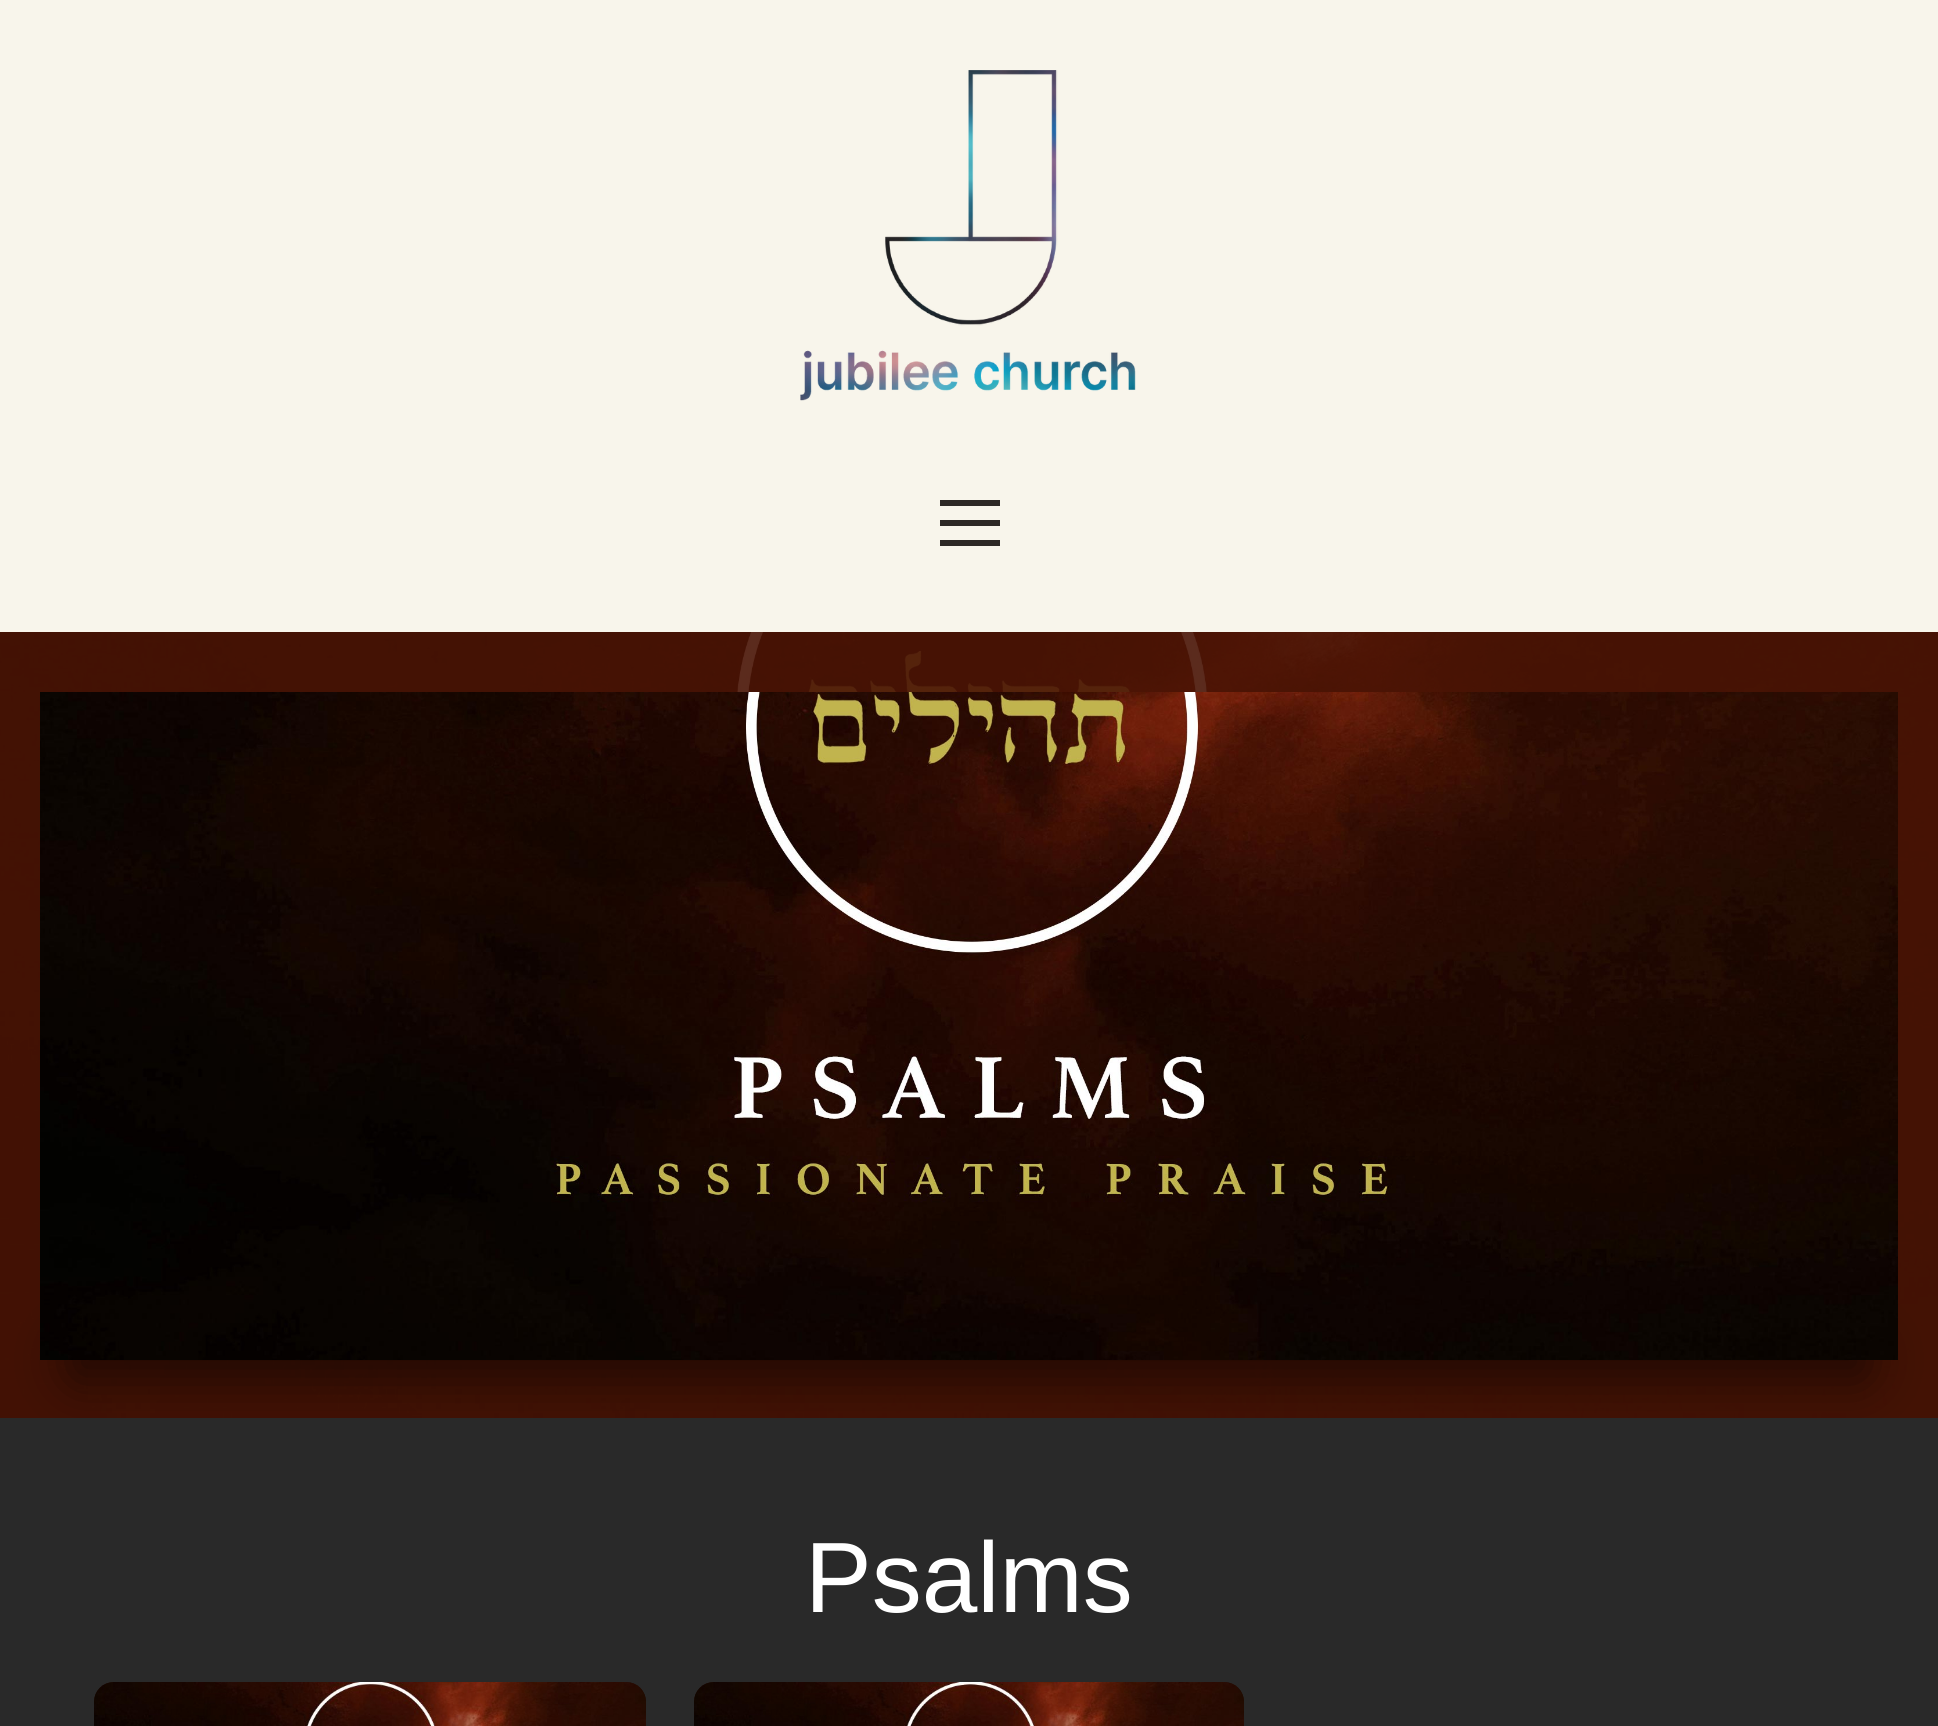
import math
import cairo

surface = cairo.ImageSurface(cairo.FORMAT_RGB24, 1938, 1726)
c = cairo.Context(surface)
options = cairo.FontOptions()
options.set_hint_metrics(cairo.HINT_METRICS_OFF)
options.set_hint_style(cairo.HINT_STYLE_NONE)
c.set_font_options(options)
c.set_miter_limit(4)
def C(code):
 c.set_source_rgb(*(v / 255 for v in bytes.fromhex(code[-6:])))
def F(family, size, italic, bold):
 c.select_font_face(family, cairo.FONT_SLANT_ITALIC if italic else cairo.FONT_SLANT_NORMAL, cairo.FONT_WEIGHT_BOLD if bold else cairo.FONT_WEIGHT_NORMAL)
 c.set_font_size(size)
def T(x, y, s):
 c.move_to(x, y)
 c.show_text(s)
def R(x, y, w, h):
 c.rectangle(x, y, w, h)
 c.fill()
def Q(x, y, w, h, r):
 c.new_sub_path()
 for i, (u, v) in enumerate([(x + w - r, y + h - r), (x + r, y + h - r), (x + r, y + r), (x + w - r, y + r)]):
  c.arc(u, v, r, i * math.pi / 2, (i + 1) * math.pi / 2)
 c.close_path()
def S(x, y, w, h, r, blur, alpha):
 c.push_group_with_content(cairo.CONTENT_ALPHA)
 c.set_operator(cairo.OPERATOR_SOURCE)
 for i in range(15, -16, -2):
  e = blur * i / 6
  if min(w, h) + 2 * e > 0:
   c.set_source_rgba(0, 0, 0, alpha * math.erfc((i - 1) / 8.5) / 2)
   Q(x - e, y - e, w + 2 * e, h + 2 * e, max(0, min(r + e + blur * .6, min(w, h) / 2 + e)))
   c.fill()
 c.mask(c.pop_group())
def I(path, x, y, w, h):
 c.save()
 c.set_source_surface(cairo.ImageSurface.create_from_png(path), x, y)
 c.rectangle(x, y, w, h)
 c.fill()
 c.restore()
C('ffffff')
c.paint()
C('f8f5eb')
R(0,0,1938,632)
I('1.png',800,70,336,331)
C('2d2926')
R(940,500,60,6)
R(940,520,60,6)
R(940,540,60,6)
I('2.png',0,632,1938,786)
C('000000')
S(68,1338,1802,44,22,25,.5)
I('3.png',40,692,1858,668)
C('292929')
R(0,1418,1938,308)
F('Liberation Sans',100,0,0)
C('ffffff')
T(805,1612,'Psalms')
C('230d06')
Q(94,1682,552,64,20)
c.fill()
I('4.png',94,1682,552,44)
Q(694,1682,550,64,20)
c.fill()
I('5.png',694,1682,550,44)
surface.write_to_png('o.png')
